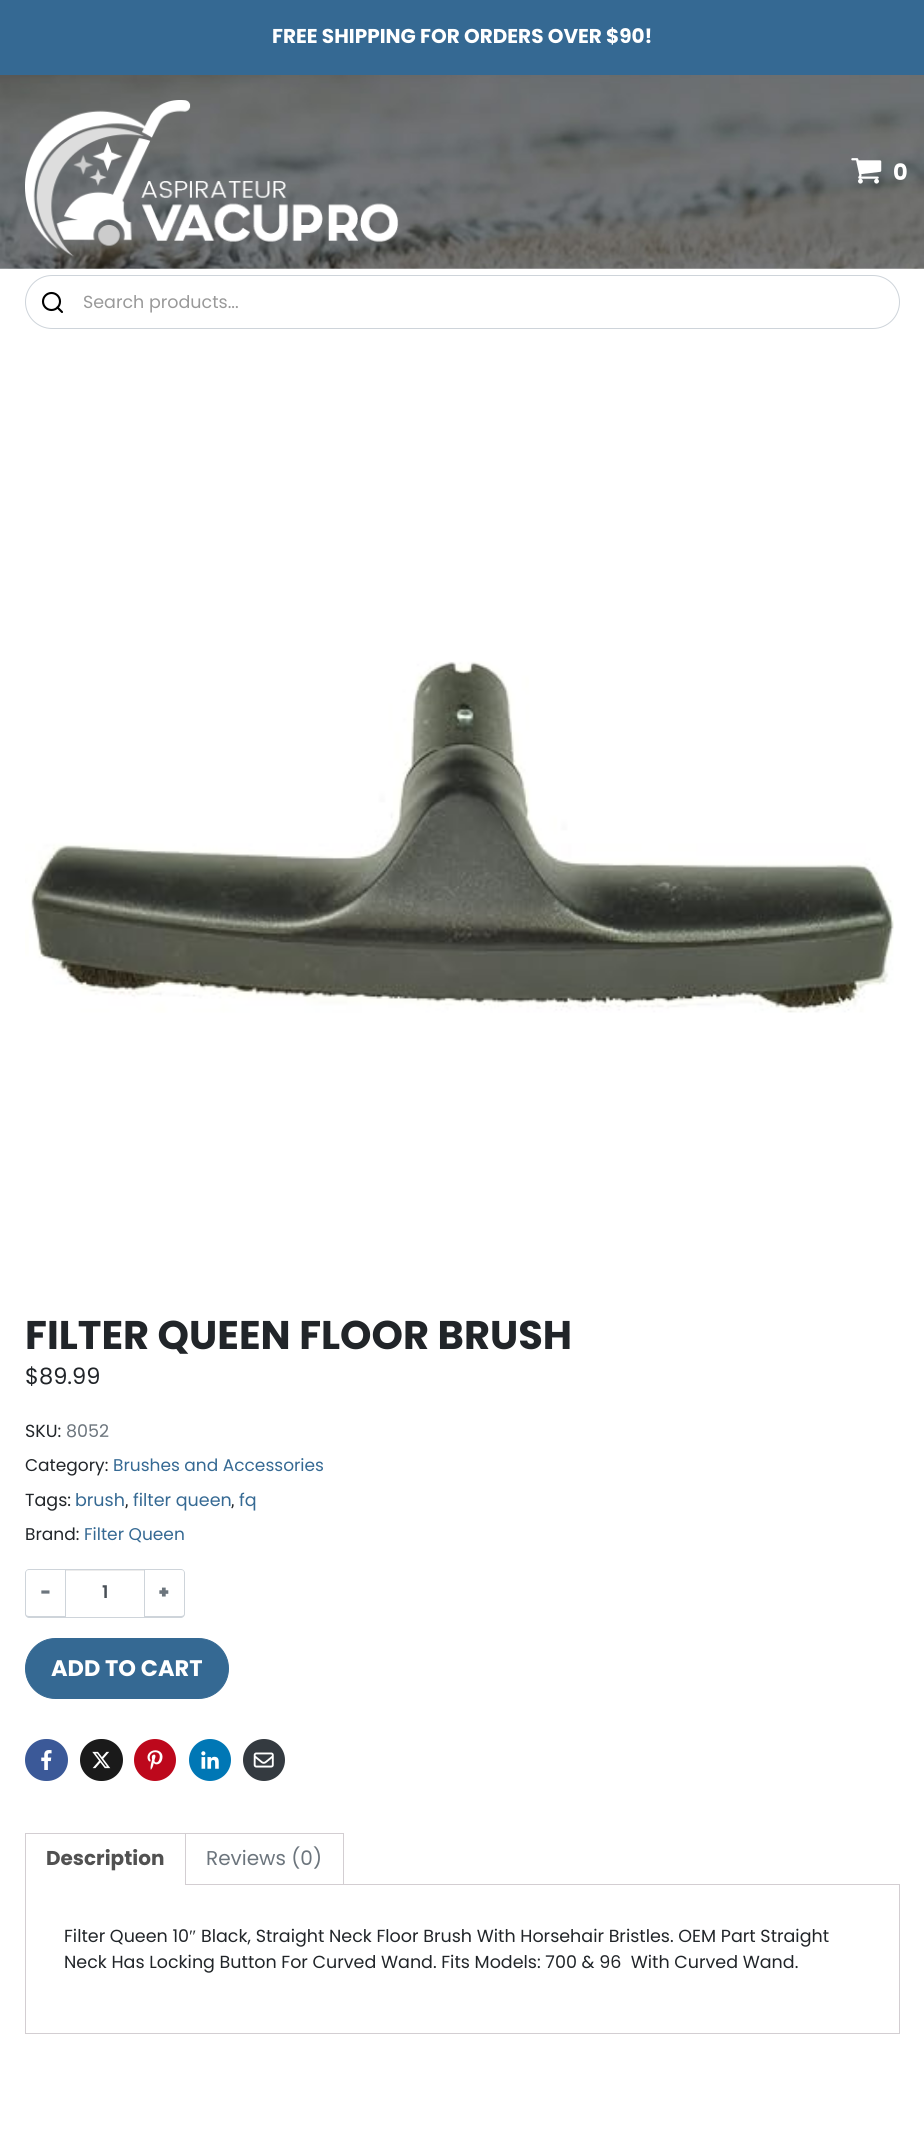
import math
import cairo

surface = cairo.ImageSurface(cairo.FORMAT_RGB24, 924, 2150)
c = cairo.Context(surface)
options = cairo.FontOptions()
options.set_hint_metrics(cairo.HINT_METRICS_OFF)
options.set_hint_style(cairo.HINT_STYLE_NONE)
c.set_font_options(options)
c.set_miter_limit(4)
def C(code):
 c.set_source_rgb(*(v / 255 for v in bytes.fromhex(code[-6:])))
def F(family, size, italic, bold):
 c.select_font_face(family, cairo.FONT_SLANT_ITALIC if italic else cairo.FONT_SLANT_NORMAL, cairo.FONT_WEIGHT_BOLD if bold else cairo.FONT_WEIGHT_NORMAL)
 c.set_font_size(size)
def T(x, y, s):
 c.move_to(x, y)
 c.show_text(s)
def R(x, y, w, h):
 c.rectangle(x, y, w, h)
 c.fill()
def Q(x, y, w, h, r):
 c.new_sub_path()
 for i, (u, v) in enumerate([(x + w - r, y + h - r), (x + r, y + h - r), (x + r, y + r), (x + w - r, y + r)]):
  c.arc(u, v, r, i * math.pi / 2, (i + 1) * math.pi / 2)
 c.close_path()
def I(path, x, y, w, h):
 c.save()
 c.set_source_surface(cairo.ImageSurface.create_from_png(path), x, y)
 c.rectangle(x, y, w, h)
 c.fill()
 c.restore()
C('ffffff')
c.paint()
C('356993')
R(0,0,924,75)
F('Poppins',20,0,1)
C('ffffff')
T(272,43,'FREE SHIPPING FOR ORDERS OVER $90!')
I('1.png',0,75,924,194)
I('2.png',25,100,374,157)
I('3.png',851,158,31,26)
F('Poppins',22.5,0,1)
T(893,180,'0')
Q(25.5,275.5,874,53,26.5)
C('ced4da')
c.set_line_width(1)
c.stroke()
c.arc(51.5,301.5,8.5,0,2 * math.pi)
C('000000')
c.set_line_width(2.1)
c.stroke()
c.new_path()
c.move_to(62,312)
c.line_to(57.5,307.5)
c.set_line_cap(cairo.LINE_CAP_ROUND)
c.set_line_join(cairo.LINE_JOIN_ROUND)
c.stroke()
F('Poppins',17.5,0,0)
C('999999')
T(83,308,'Search products...')
I('4.png',25,661,869,352)
F('Poppins',40,0,1)
C('212529')
T(25,1349,'FILTER QUEEN FLOOR BRUSH')
F('Poppins',22.5,0,0)
T(25,1384,'$89.99')
F('Poppins',17.5,0,0)
T(25,1437,'SKU:')
C('6c757d')
T(66,1437,'8052')
F('Poppins',17,0,0)
C('212529')
T(25,1471,'Category:')
C('356993')
T(113,1471,'Brushes and Accessories')
F('Poppins',17.5,0,0)
C('212529')
T(25,1506,'Tags:')
C('356993')
T(75,1506,'brush')
F('Roboto',17,0,0)
C('212529')
T(125,1506,',')
F('Poppins',17.5,0,0)
C('356993')
T(133,1506,'filter queen')
F('Roboto',17,0,0)
C('212529')
T(231,1506,',')
F('Poppins',17.5,0,0)
C('356993')
T(239,1506,'fq')
F('Poppins',17,0,0)
C('212529')
T(25,1540,'Brand:')
C('356993')
T(84,1540,'Filter Queen')
C('ececec')
R(66,1570,78,1)
c.rectangle(65.5,1569.5,79,48)
C('ced4da')
c.set_line_width(1)
c.set_line_cap(cairo.LINE_CAP_BUTT)
c.set_line_join(cairo.LINE_JOIN_MITER)
c.stroke()
c.set_fill_rule(cairo.FILL_RULE_EVEN_ODD)
c.new_path()
c.move_to(29,1569)
c.line_to(66,1569)
c.line_to(66,1618)
c.line_to(29,1618)
c.curve_to(27,1618,25,1616,25,1614)
c.line_to(25,1573)
c.curve_to(25,1571,27,1569,29,1569)
c.close_path()
c.move_to(29,1570)
c.line_to(66,1570)
c.line_to(66,1616)
c.line_to(29,1616)
c.curve_to(27,1616,26,1615,26,1614)
c.line_to(26,1573)
c.curve_to(26,1571,27,1570,29,1570)
c.close_path()
c.fill()
F('Poppins Black',17.5,0,0)
C('6c757d')
T(41,1598,'-')
F('Poppins SemiBold',17.5,0,0)
C('495057')
T(102,1598,'1')
C('ced4da')
c.new_path()
c.move_to(144,1569)
c.line_to(181,1569)
c.curve_to(183,1569,185,1571,185,1573)
c.line_to(185,1614)
c.curve_to(185,1616,183,1618,181,1618)
c.line_to(144,1618)
c.close_path()
c.move_to(144,1570)
c.line_to(181,1570)
c.curve_to(183,1570,184,1571,184,1573)
c.line_to(184,1614)
c.curve_to(184,1615,183,1616,181,1616)
c.line_to(144,1616)
c.close_path()
c.fill()
F('Poppins Black',17.5,0,0)
C('6c757d')
T(159,1598,'+')
C('356993')
Q(25.5,1638.5,203,60,30)
c.fill_preserve()
c.stroke()
F('Poppins',22.5,0,1)
C('ffffff')
T(51,1676,'ADD TO CART')
C('3b5998')
Q(25,1739,43,42,21)
c.fill()
I('5.png',41,1750,11,20)
C('1a1a1a')
Q(80,1739,43,42,21)
c.fill()
I('6.png',92,1751,19,18)
C('bd081c')
c.arc(155,1760,21,0,2 * math.pi)
c.fill()
I('7.png',147,1750,16,20)
C('0077b5')
c.arc(210,1760,21,0,2 * math.pi)
c.fill()
I('8.png',201,1751,18,18)
C('343a40')
c.arc(264,1760,21,0,2 * math.pi)
c.fill()
I('9.png',253,1752,21,16)
C('d3ced2')
R(25,1833,319,1)
R(185,1833,1,52)
R(25,1833,1,52)
F('Poppins',20,0,1)
C('515151')
T(46,1865,'Description')
C('d3ced2')
R(343,1833,1,52)
F('Poppins',20,0,0)
C('6c757d')
T(206,1865,'Reviews (0)')
C('d3ced2')
R(186,1884,714,1)
R(899,1885,1,149)
R(25,2033,875,1)
R(25,1885,1,149)
F('Poppins',17.5,0,0)
C('212529')
T(64,1942,'Filter Queen 10')
F('Liberation Serif',17.5,0,0)
T(189,1942,'″')
F('Poppins',17.5,0,0)
T(201,1942,'Black, Straight Neck Floor Brush With Horsehair Bristles. OEM Part Straight')
T(64,1968,'Neck Has Locking Button For Curved Wand. Fits Models: 700 & 96  With Curved Wand.')
surface.write_to_png('o.png')
